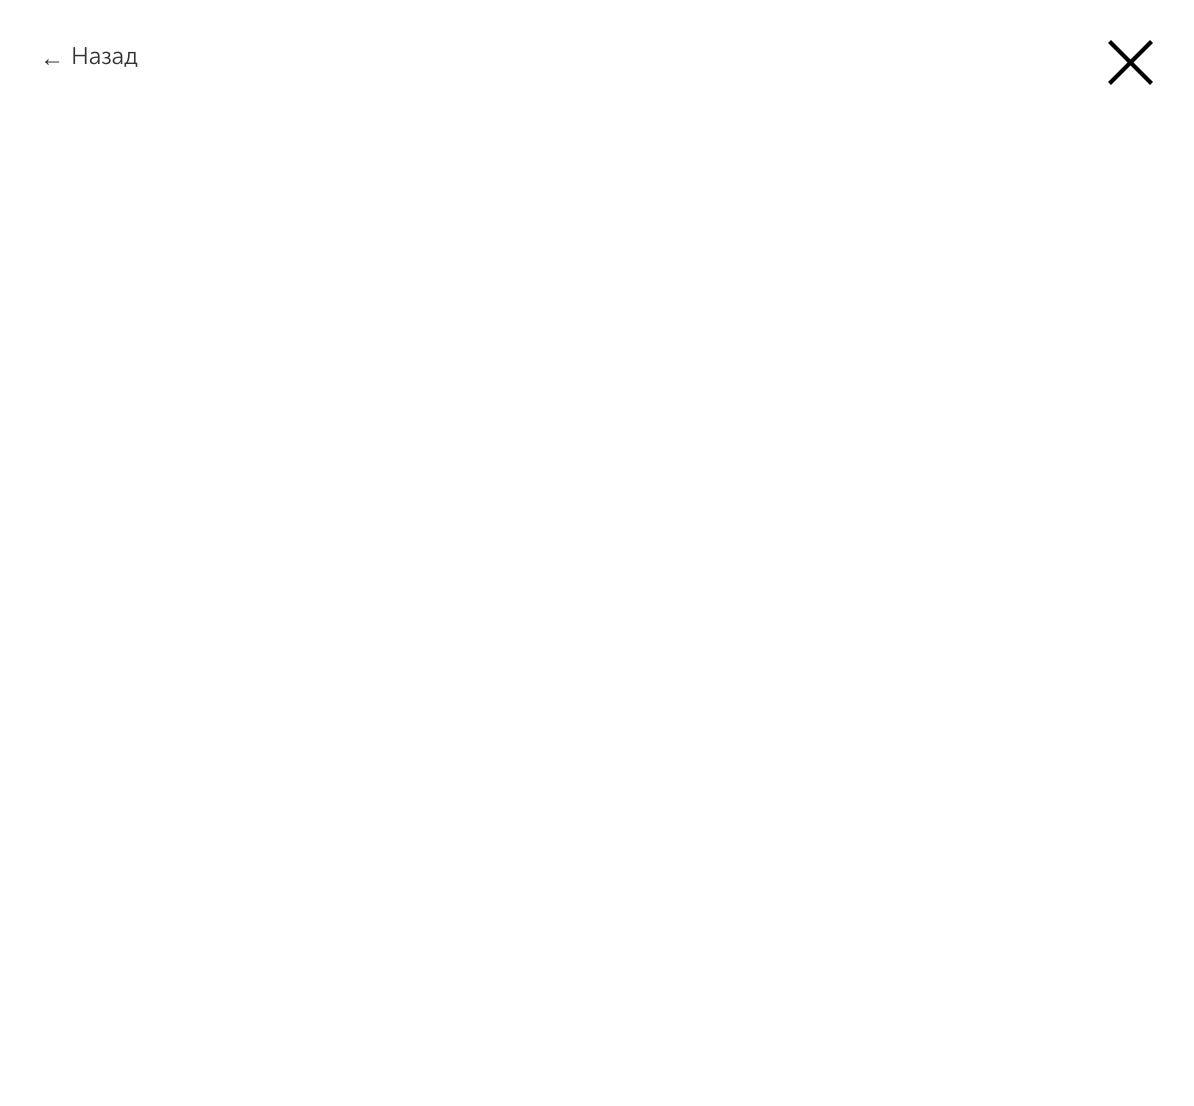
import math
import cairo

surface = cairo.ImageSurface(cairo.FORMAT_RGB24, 1194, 1106)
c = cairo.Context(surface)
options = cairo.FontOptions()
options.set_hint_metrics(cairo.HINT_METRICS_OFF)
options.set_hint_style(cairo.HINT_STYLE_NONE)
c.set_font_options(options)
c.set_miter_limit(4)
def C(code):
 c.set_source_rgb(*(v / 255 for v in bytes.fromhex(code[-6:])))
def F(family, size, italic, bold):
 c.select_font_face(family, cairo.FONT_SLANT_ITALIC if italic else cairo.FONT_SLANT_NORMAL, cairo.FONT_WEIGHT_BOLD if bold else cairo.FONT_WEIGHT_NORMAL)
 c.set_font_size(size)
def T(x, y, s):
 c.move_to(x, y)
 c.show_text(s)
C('ffffff')
c.paint()
F('Liberation Sans',24,0,0)
C('333333')
T(40,66,'←')
F('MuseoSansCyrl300',24,0,0)
T(71,64,'Назад')
C('000000')
c.set_fill_rule(cairo.FILL_RULE_EVEN_ODD)
c.new_path()
c.move_to(1108,43)
c.line_to(1111,40)
c.line_to(1153,82)
c.line_to(1150,85)
c.close_path()
c.fill()
c.new_path()
c.move_to(1150,40)
c.line_to(1153,43)
c.line_to(1111,85)
c.line_to(1108,82)
c.close_path()
c.fill()
surface.write_to_png('o.png')
